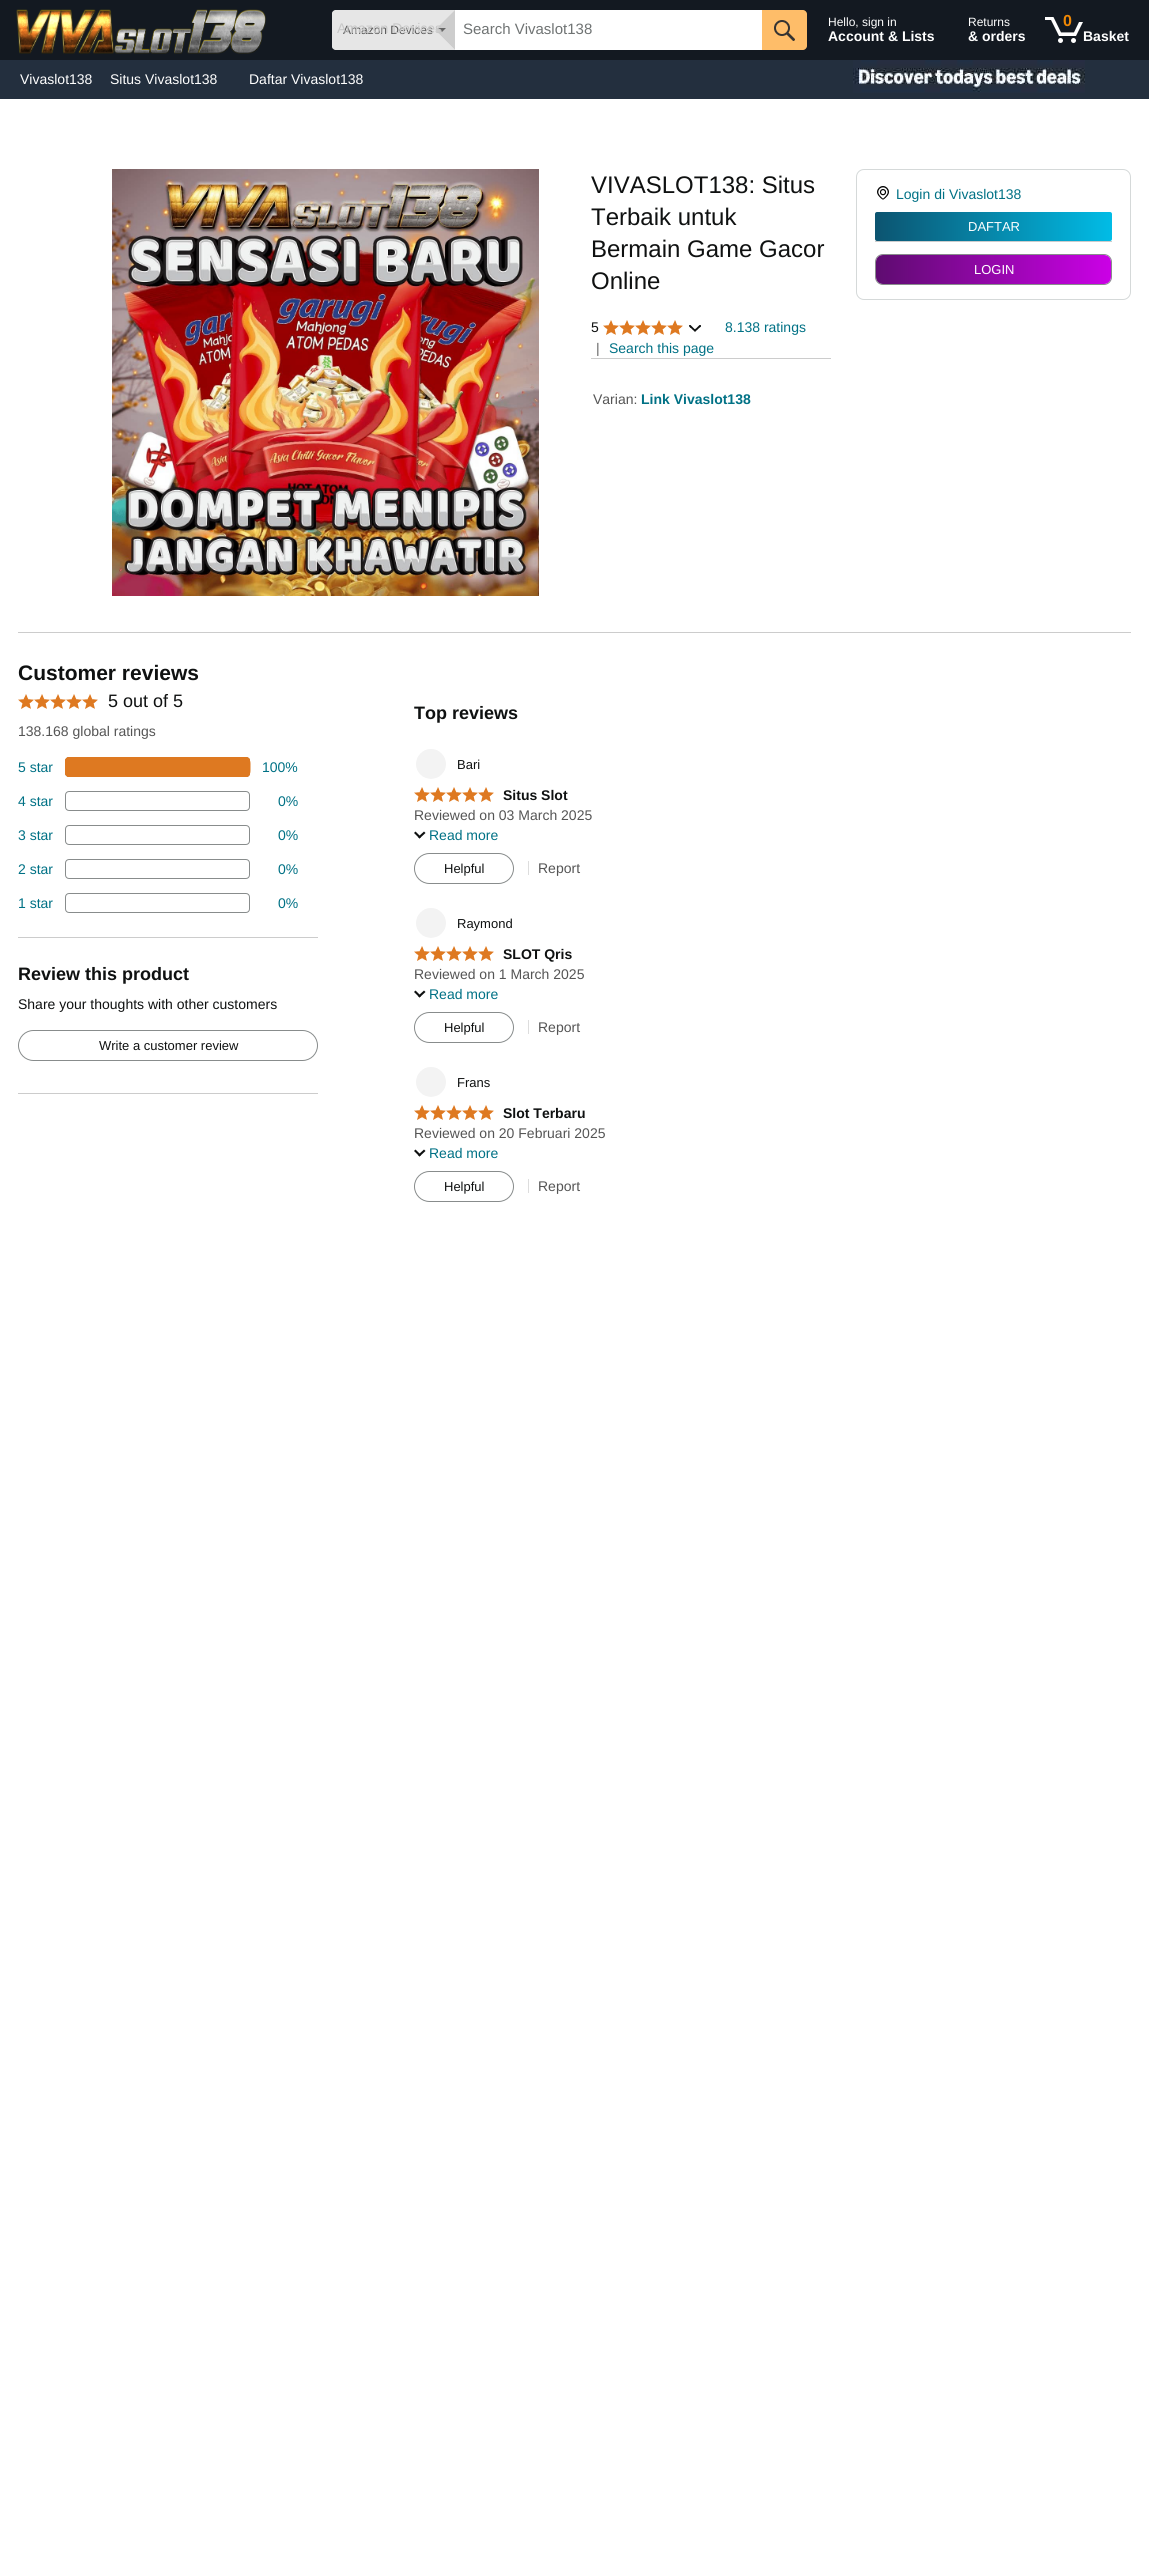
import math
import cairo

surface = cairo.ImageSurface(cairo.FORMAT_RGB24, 1149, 2560)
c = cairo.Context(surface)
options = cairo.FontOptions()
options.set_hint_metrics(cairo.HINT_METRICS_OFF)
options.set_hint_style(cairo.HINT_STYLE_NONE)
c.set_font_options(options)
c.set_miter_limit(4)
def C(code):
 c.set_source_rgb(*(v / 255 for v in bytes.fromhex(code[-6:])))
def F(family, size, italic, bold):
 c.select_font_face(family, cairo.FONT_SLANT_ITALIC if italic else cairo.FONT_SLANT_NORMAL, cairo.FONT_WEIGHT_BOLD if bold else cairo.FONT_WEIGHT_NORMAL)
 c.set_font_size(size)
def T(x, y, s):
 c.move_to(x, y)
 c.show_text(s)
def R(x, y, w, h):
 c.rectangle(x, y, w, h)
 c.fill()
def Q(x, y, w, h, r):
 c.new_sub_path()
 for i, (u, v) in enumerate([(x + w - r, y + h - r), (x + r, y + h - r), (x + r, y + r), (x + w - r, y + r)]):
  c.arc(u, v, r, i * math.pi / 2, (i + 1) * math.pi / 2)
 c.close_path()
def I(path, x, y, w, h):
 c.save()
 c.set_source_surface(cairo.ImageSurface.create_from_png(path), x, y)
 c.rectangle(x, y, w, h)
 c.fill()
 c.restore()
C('ffffff')
c.paint()
C('131921')
R(0,0,1149,60)
I('1.png',16,9,250,45)
C('e6e6e6')
c.new_path()
c.move_to(336,10)
c.line_to(455,10)
c.line_to(455,50)
c.line_to(336,50)
c.curve_to(334,50,332,48,332,46)
c.line_to(332,14)
c.curve_to(332,12,334,10,336,10)
c.close_path()
c.fill()
c.new_path()
c.move_to(336,10)
c.line_to(455,10)
c.line_to(435,30)
c.line_to(352,30)
c.line_to(333,11)
c.close_path()
c.fill()
C('cdcdcd')
c.new_path()
c.move_to(455,10)
c.line_to(435,30)
c.line_to(455,50)
c.close_path()
c.fill()
C('e6e6e6')
c.new_path()
c.move_to(455,50)
c.line_to(336,50)
c.line_to(333,49)
c.line_to(352,30)
c.line_to(435,30)
c.close_path()
c.fill()
c.new_path()
c.move_to(333,49)
c.line_to(352,30)
c.line_to(333,11)
c.curve_to(332.5,12,332,13,332,14)
c.line_to(332,46)
c.curve_to(332,47,332.5,48,333,49)
c.close_path()
c.fill()
F('Liberation Sans',12,0,0)
C('555555')
T(343,34,'Amazon Devices')
C('666666')
c.new_path()
c.move_to(438,28)
c.line_to(446,28)
c.line_to(442,32)
c.close_path()
c.fill()
F('Liberation Sans',14,0,0)
C('c7c7c7')
T(337,33,'Amazon Devices')
C('ffffff')
R(455,10,307,40)
F('Liberation Sans',15,0,0)
C('6f7373')
T(463,34,'Search Vivaslot138')
C('febd69')
c.new_path()
c.move_to(762,10)
c.line_to(803,10)
c.curve_to(805,10,807,12,807,14)
c.line_to(807,46)
c.curve_to(807,48,805,50,803,50)
c.line_to(762,50)
c.close_path()
c.fill()
I('2.png',774,20,21,21)
F('Liberation Sans',12,0,0)
C('ffffff')
T(828,26,'Hello, sign in')
F('Liberation Sans',14,0,1)
T(828,41,'Account & Lists')
F('Liberation Sans',12,0,0)
T(968,26,'Returns')
F('Liberation Sans',14,0,1)
T(968,41,'& orders')
I('3.png',1045,17,38,26)
F('Liberation Sans',16,0,1)
C('f08804')
T(1063,26,'0')
F('Liberation Sans',14,0,1)
C('ffffff')
T(1083,41,'Basket')
C('232f3e')
R(0,60,1149,39)
F('Liberation Sans',14,0,0)
C('ffffff')
T(20,84,'Vivaslot138')
T(110,84,'Situs Vivaslot138')
T(249,84,'Daftar Vivaslot138')
I('4.png',853,60,232,33)
I('5.png',112,169,427,427)
F('Liberation Sans',24,0,0)
C('0f1111')
T(591,193,'VIVASLOT138: Situs')
T(591,225,'Terbaik untuk')
T(591,257,'Bermain Game Gacor')
T(591,289,'Online')
F('Liberation Sans',14,0,0)
T(591,332,'5')
I('6.png',603,320,80,15)
I('7.png',689,325,12,7)
C('007185')
T(725,332,'8.138 ratings')
C('666666')
T(596,353,'|')
C('007185')
T(609,353,'Search this page')
C('cccccc')
R(591,358,240,1)
C('555555')
T(593,404,'Varian:')
F('Liberation Sans',14,0,1)
C('007185')
T(641,404,'Link Vivaslot138')
Q(856.5,169.5,274,130,7.5)
C('d5d9d9')
c.set_line_width(1)
c.stroke()
I('8.png',877,186,12,14)
F('Liberation Sans',14,0,0)
C('007185')
T(896,199,'Login di Vivaslot138')
gradient = cairo.LinearGradient(875,227,1112,227)
gradient.add_color_stop_rgba(0,0.047,0.329,0.439,1)
gradient.add_color_stop_rgba(1,0.004,0.737,0.902,1)
c.set_source(gradient)
Q(875,212,237,29,2)
c.fill()
F('Liberation Sans',13,0,0)
C('ffffff')
T(968,231,'DAFTAR')
C('cccccc')
R(875,241,237,1)
Q(875.5,254.5,236,30,7.5)
C('888c8c')
c.stroke()
gradient = cairo.LinearGradient(876,270,1111,270)
gradient.add_color_stop_rgba(0,0.369,0.047,0.439,1)
gradient.add_color_stop_rgba(1,0.796,0.004,0.902,1)
c.set_source(gradient)
Q(876,255,235,29,7)
c.fill()
C('ffffff')
T(974,274,'LOGIN')
C('cccccc')
R(18,632,1113,1)
F('Liberation Sans',21,0,1)
C('0f1111')
T(18,680,'Customer reviews')
I('6.png',18,694,80,15)
F('Liberation Sans',18,0,0)
T(108,707,'5 out of 5')
F('Liberation Sans',14,0,0)
C('555555')
T(18,736,'138.168 global ratings')
C('007185')
T(18,772,'5 star')
Q(65.5,757.5,184,19,3.5)
C('888c8c')
c.stroke()
C('de7921')
Q(65,757,185,20,4)
c.fill()
c.set_fill_rule(cairo.FILL_RULE_EVEN_ODD)
c.new_path()
c.move_to(69,757)
c.curve_to(67,757,65,759,65,761)
c.line_to(65,773)
c.curve_to(65,775,67,777,69,777)
c.line_to(246,777)
c.curve_to(247,777,248,777,249,776)
c.line_to(69,776)
c.curve_to(67,776,66,775,66,773)
c.line_to(66,761)
c.curve_to(66,759,67,758,69,758)
c.line_to(249,758)
c.line_to(246,757)
c.close_path()
c.move_to(249,758)
c.line_to(249,776)
c.curve_to(251,774,251,760,249,758)
c.close_path()
c.fill()
c.set_fill_rule(cairo.FILL_RULE_WINDING)
c.new_path()
c.move_to(249,775.5)
c.curve_to(251,773.5,250,769.5,250,767)
c.curve_to(250,764.5,251,761,249,758.5)
c.curve_to(249,764,249.5,770,249,775.5)
c.close_path()
c.fill()
C('007185')
T(262,772,'100%')
T(18,806,'4 star')
Q(65.5,791.5,184,19,3.5)
C('888c8c')
c.stroke()
C('007185')
T(278,806,'0%')
T(18,840,'3 star')
Q(65.5,825.5,184,19,3.5)
C('888c8c')
c.stroke()
C('007185')
T(278,840,'0%')
T(18,874,'2 star')
Q(65.5,859.5,184,19,3.5)
C('888c8c')
c.stroke()
C('007185')
T(278,874,'0%')
T(18,908,'1 star')
Q(65.5,893.5,184,19,3.5)
C('888c8c')
c.stroke()
C('007185')
T(278,908,'0%')
C('cccccc')
R(18,937,300,1)
F('Liberation Sans',18,0,1)
C('0f1111')
T(18,980,'Review this product')
F('Liberation Sans',14,0,0)
T(18,1009,'Share your thoughts with other customers')
Q(18.5,1030.5,299,30,15)
C('888c8c')
c.stroke()
F('Liberation Sans',13,0,0)
C('0f1111')
T(99,1050,'Write a customer review')
C('cccccc')
R(18,1093,300,1)
F('Liberation Sans',18,0,1)
C('0f1111')
T(414,719,'Top reviews')
I('9.png',416,749,30,30)
F('Liberation Sans',13,0,0)
T(457,769,'Bari')
I('6.png',414,787,80,15)
F('Liberation Sans',14,0,1)
T(503,800,'Situs Slot')
F('Liberation Sans',14,0,0)
C('555555')
T(414,820,'Reviewed on 03 March 2025')
C('0f1111')
c.new_path()
c.move_to(424,831.5)
c.line_to(425.5,833)
c.line_to(419.5,838.5)
c.line_to(418,837)
c.close_path()
c.fill()
c.new_path()
c.move_to(415.5,831.5)
c.line_to(421,837)
c.line_to(419.5,838.5)
c.line_to(414,833)
c.close_path()
c.fill()
C('007185')
T(429,840,'Read more')
Q(414.5,853.5,99,30,15)
C('888c8c')
c.stroke()
F('Liberation Sans',13,0,0)
C('0f1111')
T(444,873,'Helpful')
C('dddddd')
R(528,861,1,14)
F('Liberation Sans',14,0,0)
C('555555')
T(538,873,'Report')
I('10.png',416,908,30,30)
F('Liberation Sans',13,0,0)
C('0f1111')
T(457,928,'Raymond')
I('6.png',414,946,80,15)
F('Liberation Sans',14,0,1)
T(503,959,'SLOT Qris')
F('Liberation Sans',14,0,0)
C('555555')
T(414,979,'Reviewed on 1 March 2025')
C('0f1111')
c.new_path()
c.move_to(424,990.5)
c.line_to(425.5,992)
c.line_to(419.5,997.5)
c.line_to(418,996)
c.close_path()
c.fill()
c.new_path()
c.move_to(415.5,990.5)
c.line_to(421,996)
c.line_to(419.5,997.5)
c.line_to(414,992)
c.close_path()
c.fill()
C('007185')
T(429,999,'Read more')
Q(414.5,1012.5,99,30,15)
C('888c8c')
c.stroke()
F('Liberation Sans',13,0,0)
C('0f1111')
T(444,1032,'Helpful')
C('dddddd')
R(528,1020,1,14)
F('Liberation Sans',14,0,0)
C('555555')
T(538,1032,'Report')
I('10.png',416,1067,30,30)
F('Liberation Sans',13,0,0)
C('0f1111')
T(457,1087,'Frans')
I('6.png',414,1105,80,15)
F('Liberation Sans',14,0,1)
T(503,1118,'Slot Terbaru')
F('Liberation Sans',14,0,0)
C('555555')
T(414,1138,'Reviewed on 20 Februari 2025')
C('0f1111')
c.new_path()
c.move_to(424,1149.5)
c.line_to(425.5,1151)
c.line_to(419.5,1156.5)
c.line_to(418,1155)
c.close_path()
c.fill()
c.new_path()
c.move_to(415.5,1149.5)
c.line_to(421,1155)
c.line_to(419.5,1156.5)
c.line_to(414,1151)
c.close_path()
c.fill()
C('007185')
T(429,1158,'Read more')
Q(414.5,1171.5,99,30,15)
C('888c8c')
c.stroke()
F('Liberation Sans',13,0,0)
C('0f1111')
T(444,1191,'Helpful')
C('dddddd')
R(528,1179,1,14)
F('Liberation Sans',14,0,0)
C('555555')
T(538,1191,'Report')
surface.write_to_png('o.png')
